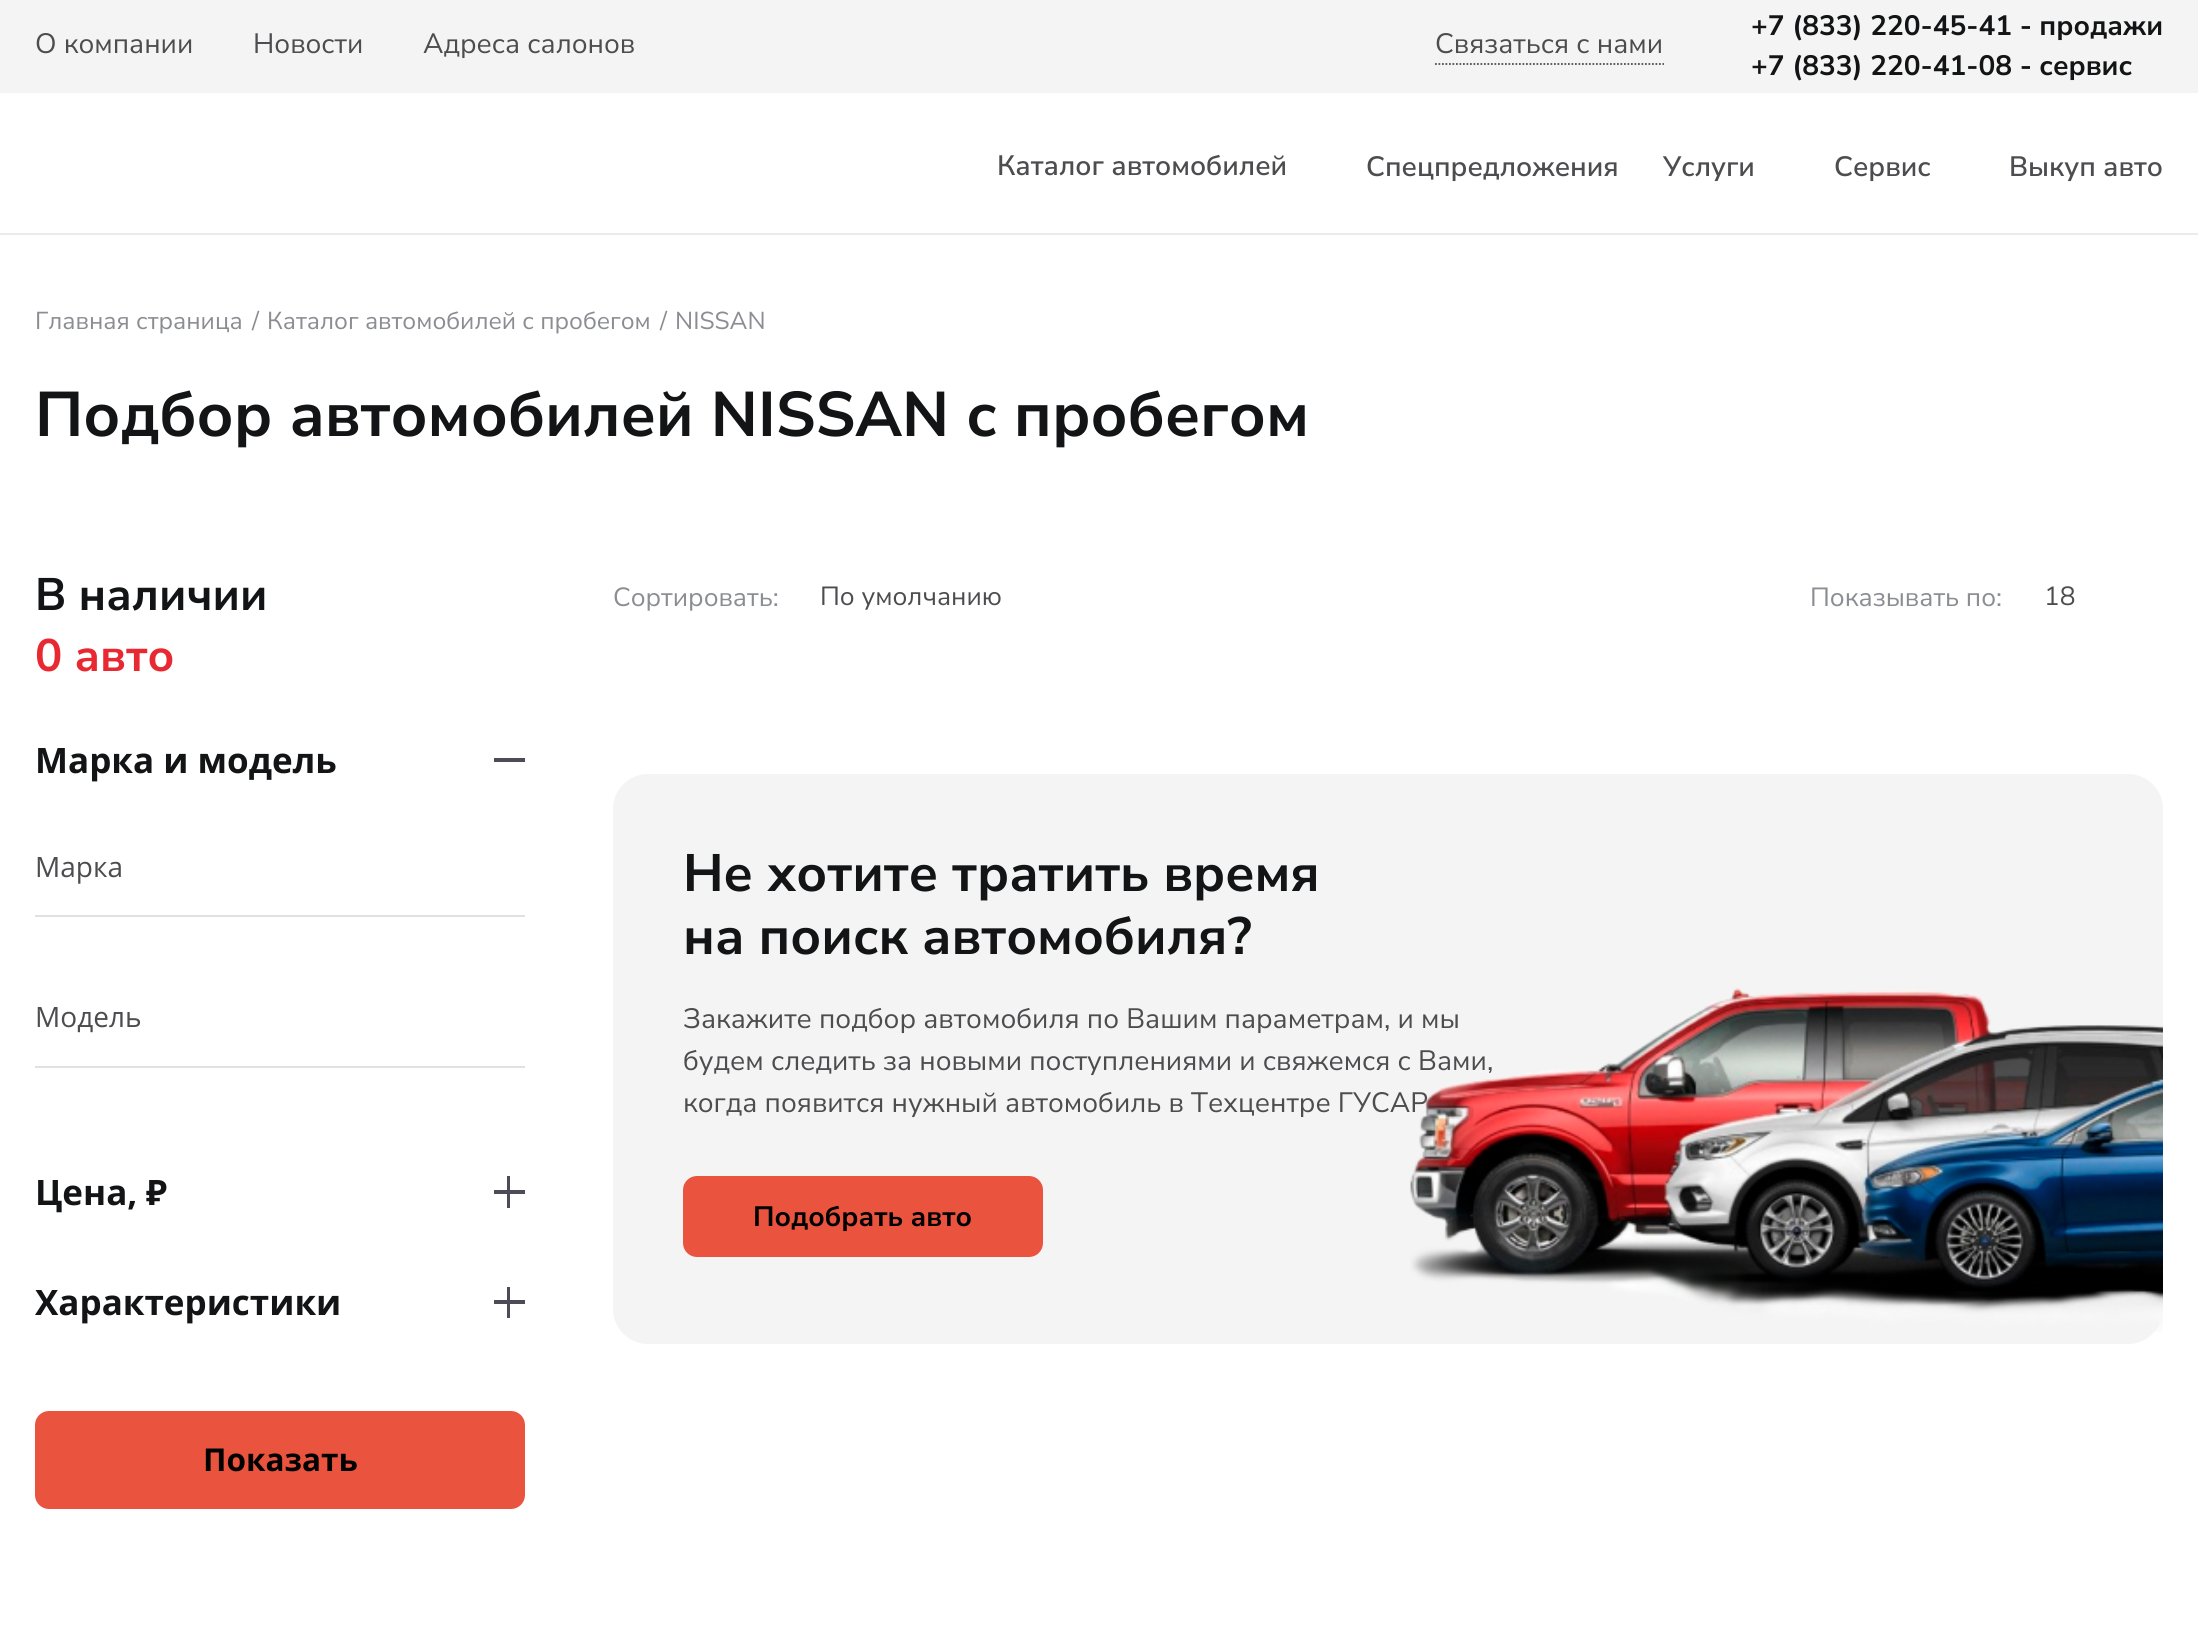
import math
import cairo

surface = cairo.ImageSurface(cairo.FORMAT_RGB24, 2198, 1641)
c = cairo.Context(surface)
options = cairo.FontOptions()
options.set_hint_metrics(cairo.HINT_METRICS_OFF)
options.set_hint_style(cairo.HINT_STYLE_NONE)
c.set_font_options(options)
c.set_miter_limit(4)
def C(code):
 c.set_source_rgb(*(v / 255 for v in bytes.fromhex(code[-6:])))
def F(family, size, italic, bold):
 c.select_font_face(family, cairo.FONT_SLANT_ITALIC if italic else cairo.FONT_SLANT_NORMAL, cairo.FONT_WEIGHT_BOLD if bold else cairo.FONT_WEIGHT_NORMAL)
 c.set_font_size(size)
def T(x, y, s):
 c.move_to(x, y)
 c.show_text(s)
def R(x, y, w, h):
 c.rectangle(x, y, w, h)
 c.fill()
def Q(x, y, w, h, r):
 c.new_sub_path()
 for i, (u, v) in enumerate([(x + w - r, y + h - r), (x + r, y + h - r), (x + r, y + r), (x + w - r, y + r)]):
  c.arc(u, v, r, i * math.pi / 2, (i + 1) * math.pi / 2)
 c.close_path()
def I(path, x, y, w, h):
 c.save()
 c.set_source_surface(cairo.ImageSurface.create_from_png(path), x, y)
 c.rectangle(x, y, w, h)
 c.fill()
 c.restore()
C('ffffff')
c.paint()
C('ebebeb')
R(0,233,2198,2)
C('f4f4f4')
R(0,0,2198,93)
F('Nunito Sans',28,0,0)
C('4d4d50')
T(35,53,'О компании')
T(253,53,'Новости')
T(423,53,'Адреса салонов')
T(1435,53,'Связаться с нами')
c.new_path()
c.move_to(1435,64)
c.line_to(1664,64)
c.set_line_width(1.8)
c.set_dash([1.75,1.75])
c.stroke()
F('Nunito Sans',28,0,1)
C('131415')
T(1751,35,'+7 (833) 220-45-41 - продажи')
T(1751,75,'+7 (833) 220-41-08 - сервис')
F('Nunito Sans SemiBold',28,0,0)
C('4d4d50')
T(997,175,'Каталог автомобилей')
T(1366,176,'Спецпредложения')
T(1663,176,'Услуги')
T(1834,176,'Сервис')
T(2009,176,'Выкуп авто')
F('Nunito Sans',24.5,0,0)
C('8b8d92')
T(35,329,'Главная страница')
T(252,329,'/')
T(267,329,'Каталог автомобилей с пробегом')
T(660,329,'/')
T(675,329,'NISSAN')
F('Nunito Sans',63,0,1)
C('131415')
T(35,436,'Подбор автомобилей NISSAN с пробегом')
F('Nunito Sans',45.5,0,1)
T(35,610,'В наличии')
C('e82932')
T(35,671,'0 авто')
F('Open Sans',35,0,1)
C('131415')
T(35,773,'Марка и модель')
C('4e4b59')
R(494,758,31,4)
C('e1e1e1')
R(35,915,490,2)
F('Open Sans',28,0,0)
C('4d4d50')
T(35,877,'Марка')
C('e1e1e1')
R(35,1066,490,2)
C('4d4d50')
T(35,1027,'Модель')
F('Open Sans',35,0,1)
C('131415')
T(35,1205,'Цена,')
F('Noto Sans',35,0,1)
T(146,1205,'₽')
C('4e4b59')
R(494,1190,31,4)
R(507,1176,3,32)
F('Open Sans',35,0,1)
C('131415')
T(35,1315,'Характеристики')
C('4e4b59')
R(494,1300,31,4)
R(507,1287,3,31)
C('ea533d')
Q(36,1412,488,96,13)
c.fill_preserve()
c.set_line_width(2)
c.set_dash([])
c.stroke()
F('Open Sans',31.5,0,1)
C('000000')
T(203,1471,'Показать')
F('Nunito Sans',26.25,0,0)
C('8b8d92')
T(613,606,'Сортировать:')
C('4d4d50')
T(820,605,'По умолчанию')
C('8b8d92')
T(1810,606,'Показывать по:')
C('4d4d50')
T(2044,605,'18')
C('f4f4f4')
Q(613,774,1550,570,35)
c.fill()
F('Nunito Sans',52.5,0,1)
C('131415')
T(683,891,'Не хотите тратить время')
T(683,954,'на поиск автомобиля?')
F('Nunito Sans',28,0,0)
C('4d4d50')
T(683,1028,'Закажите подбор автомобиля по Вашим параметрам, и мы')
T(683,1070,'будем следить за новыми поступлениями и свяжемся с Вами,')
T(683,1112,'когда появится нужный автомобиль в Техцентре ГУСАР')
I('1.png',1410,988,753,344)
C('ea533d')
Q(684,1177,358,79,13)
c.fill_preserve()
c.stroke()
F('Nunito Sans',28,0,1)
C('000000')
T(753,1226,'Подобрать авто')
surface.write_to_png('o.png')
